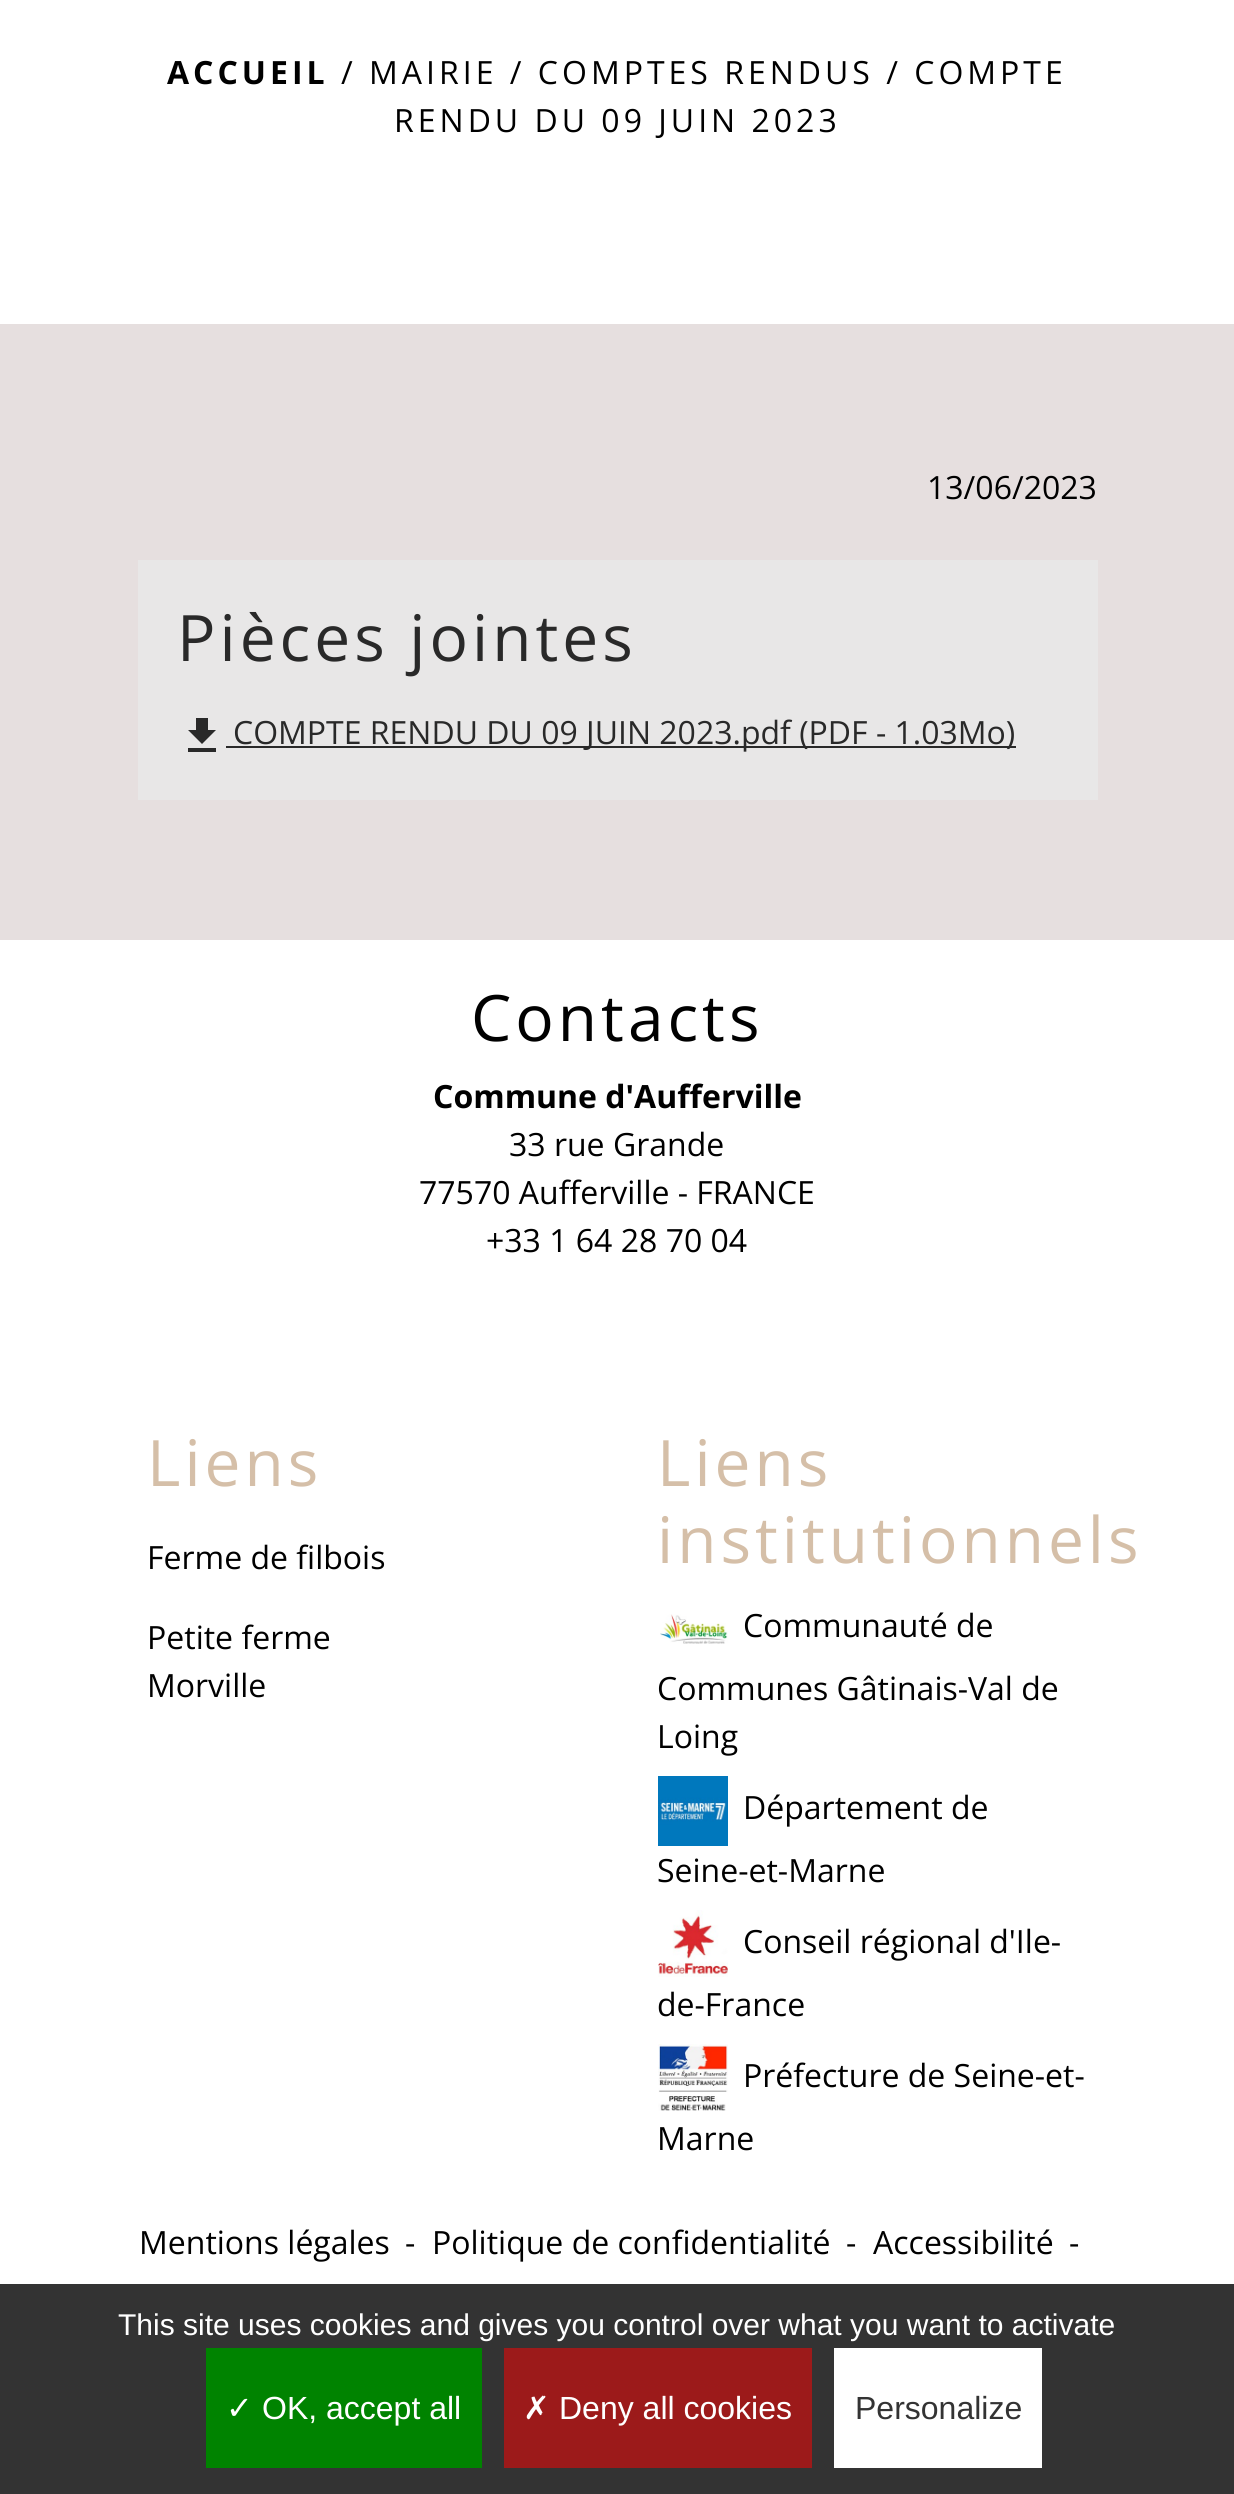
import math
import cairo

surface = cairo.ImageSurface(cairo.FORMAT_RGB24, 1234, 2494)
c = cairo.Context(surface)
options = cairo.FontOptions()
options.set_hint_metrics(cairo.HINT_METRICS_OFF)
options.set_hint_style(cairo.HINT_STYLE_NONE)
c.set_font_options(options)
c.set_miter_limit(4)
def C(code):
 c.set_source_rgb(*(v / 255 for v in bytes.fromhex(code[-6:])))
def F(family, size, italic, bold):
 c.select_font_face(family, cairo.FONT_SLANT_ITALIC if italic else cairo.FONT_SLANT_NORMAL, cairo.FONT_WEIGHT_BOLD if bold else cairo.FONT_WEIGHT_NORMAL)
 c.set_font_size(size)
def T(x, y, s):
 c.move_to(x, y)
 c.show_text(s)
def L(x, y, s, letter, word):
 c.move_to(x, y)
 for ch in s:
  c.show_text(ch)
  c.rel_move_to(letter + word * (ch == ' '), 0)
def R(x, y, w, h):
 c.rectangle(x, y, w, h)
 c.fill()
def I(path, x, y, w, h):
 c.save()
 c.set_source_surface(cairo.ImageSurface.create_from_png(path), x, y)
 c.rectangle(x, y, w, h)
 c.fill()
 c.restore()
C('e6dfdf')
c.paint()
C('ffffff')
R(0,0,1234,324)
F('Open Sans',32,0,1)
C('000000')
L(167,84,'ACCUEIL',4,0)
F('Open Sans',32,0,0)
L(341,84,'/ MAIRIE / COMPTES RENDUS / COMPTE',4,0)
L(394,132,'RENDU DU 09 JUIN 2023',4,0)
T(927,499,'13/06/2023')
C('e8e7e7')
R(138,560,960,240)
F('Open Sans',64,0,0)
C('292929')
L(177,661,'Pièces jointes',4,0)
c.new_path()
c.move_to(188,748)
c.line_to(216,748)
c.line_to(216,752)
c.line_to(188,752)
c.close_path()
c.move_to(216,730)
c.line_to(202,744)
c.line_to(188,730)
c.line_to(196,730)
c.line_to(196,718)
c.line_to(208,718)
c.line_to(208,730)
c.close_path()
c.fill()
R(226,746,790,2)
F('Open Sans',32,0,0)
T(233,744,'COMPTE RENDU DU 09 JUIN 2023.pdf (PDF - 1.03Mo)')
C('ffffff')
R(0,940,1234,1344)
F('Open Sans',64,0,0)
C('000000')
L(471,1041,'Contacts',4,0)
F('Open Sans',32,0,1)
T(433,1108,'Commune d\'Aufferville')
F('Open Sans',32,0,0)
T(509,1156,'33 rue Grande')
T(419,1204,'77570 Aufferville - FRANCE')
T(486,1252,'+33 1 64 28 70 04')
F('Open Sans',64,0,0)
C('d5bfa8')
L(147,1486,'Liens',4,0)
F('Open Sans',32,0,0)
C('000000')
T(147,1569,'Ferme de filbois')
T(147,1649,'Petite ferme')
T(147,1697,'Morville')
F('Open Sans',64,0,0)
C('d5bfa8')
L(657,1486,'Liens',4,0)
L(657,1563,'institutionnels',4,0)
I('1.png',660,1614,68,30)
F('Open Sans',32,0,0)
C('000000')
T(743,1637,'Communauté de')
T(657,1700,'Communes Gâtinais-Val de')
T(657,1748,'Loing')
I('2.png',658,1776,70,70)
T(743,1819,'Département de')
T(657,1882,'Seine-et-Marne')
I('3.png',658,1910,70,67)
T(743,1953,'Conseil régional d\'Ile-')
T(657,2016,'de-France')
I('4.png',658,2044,70,67)
T(743,2087,'Préfecture de Seine-et-')
T(657,2150,'Marne')
T(139,2254,'Mentions légales')
T(405,2254,'-')
T(432,2254,'Politique de confidentialité')
T(846,2254,'-')
T(873,2254,'Accessibilité')
T(1069,2254,'-')
C('333333')
R(0,2284,1234,210)
F('Liberation Sans',30,0,0)
C('ffffff')
T(118,2335,'This site uses cookies and gives you control over what you want to activate')
C('008300')
R(206,2348,276,120)
F('DejaVu Sans',32,0,0)
C('ffffff')
T(226,2419,'✓')
F('Liberation Sans',32,0,0)
T(262,2419,'OK, accept all')
C('9c1a1a')
R(504,2348,308,120)
F('DejaVu Sans',32,0,0)
C('ffffff')
T(523,2419,'✗')
F('Liberation Sans',32,0,0)
T(559,2419,'Deny all cookies')
R(834,2348,208,120)
C('333333')
T(855,2419,'Personalize')
surface.write_to_png('o.png')
